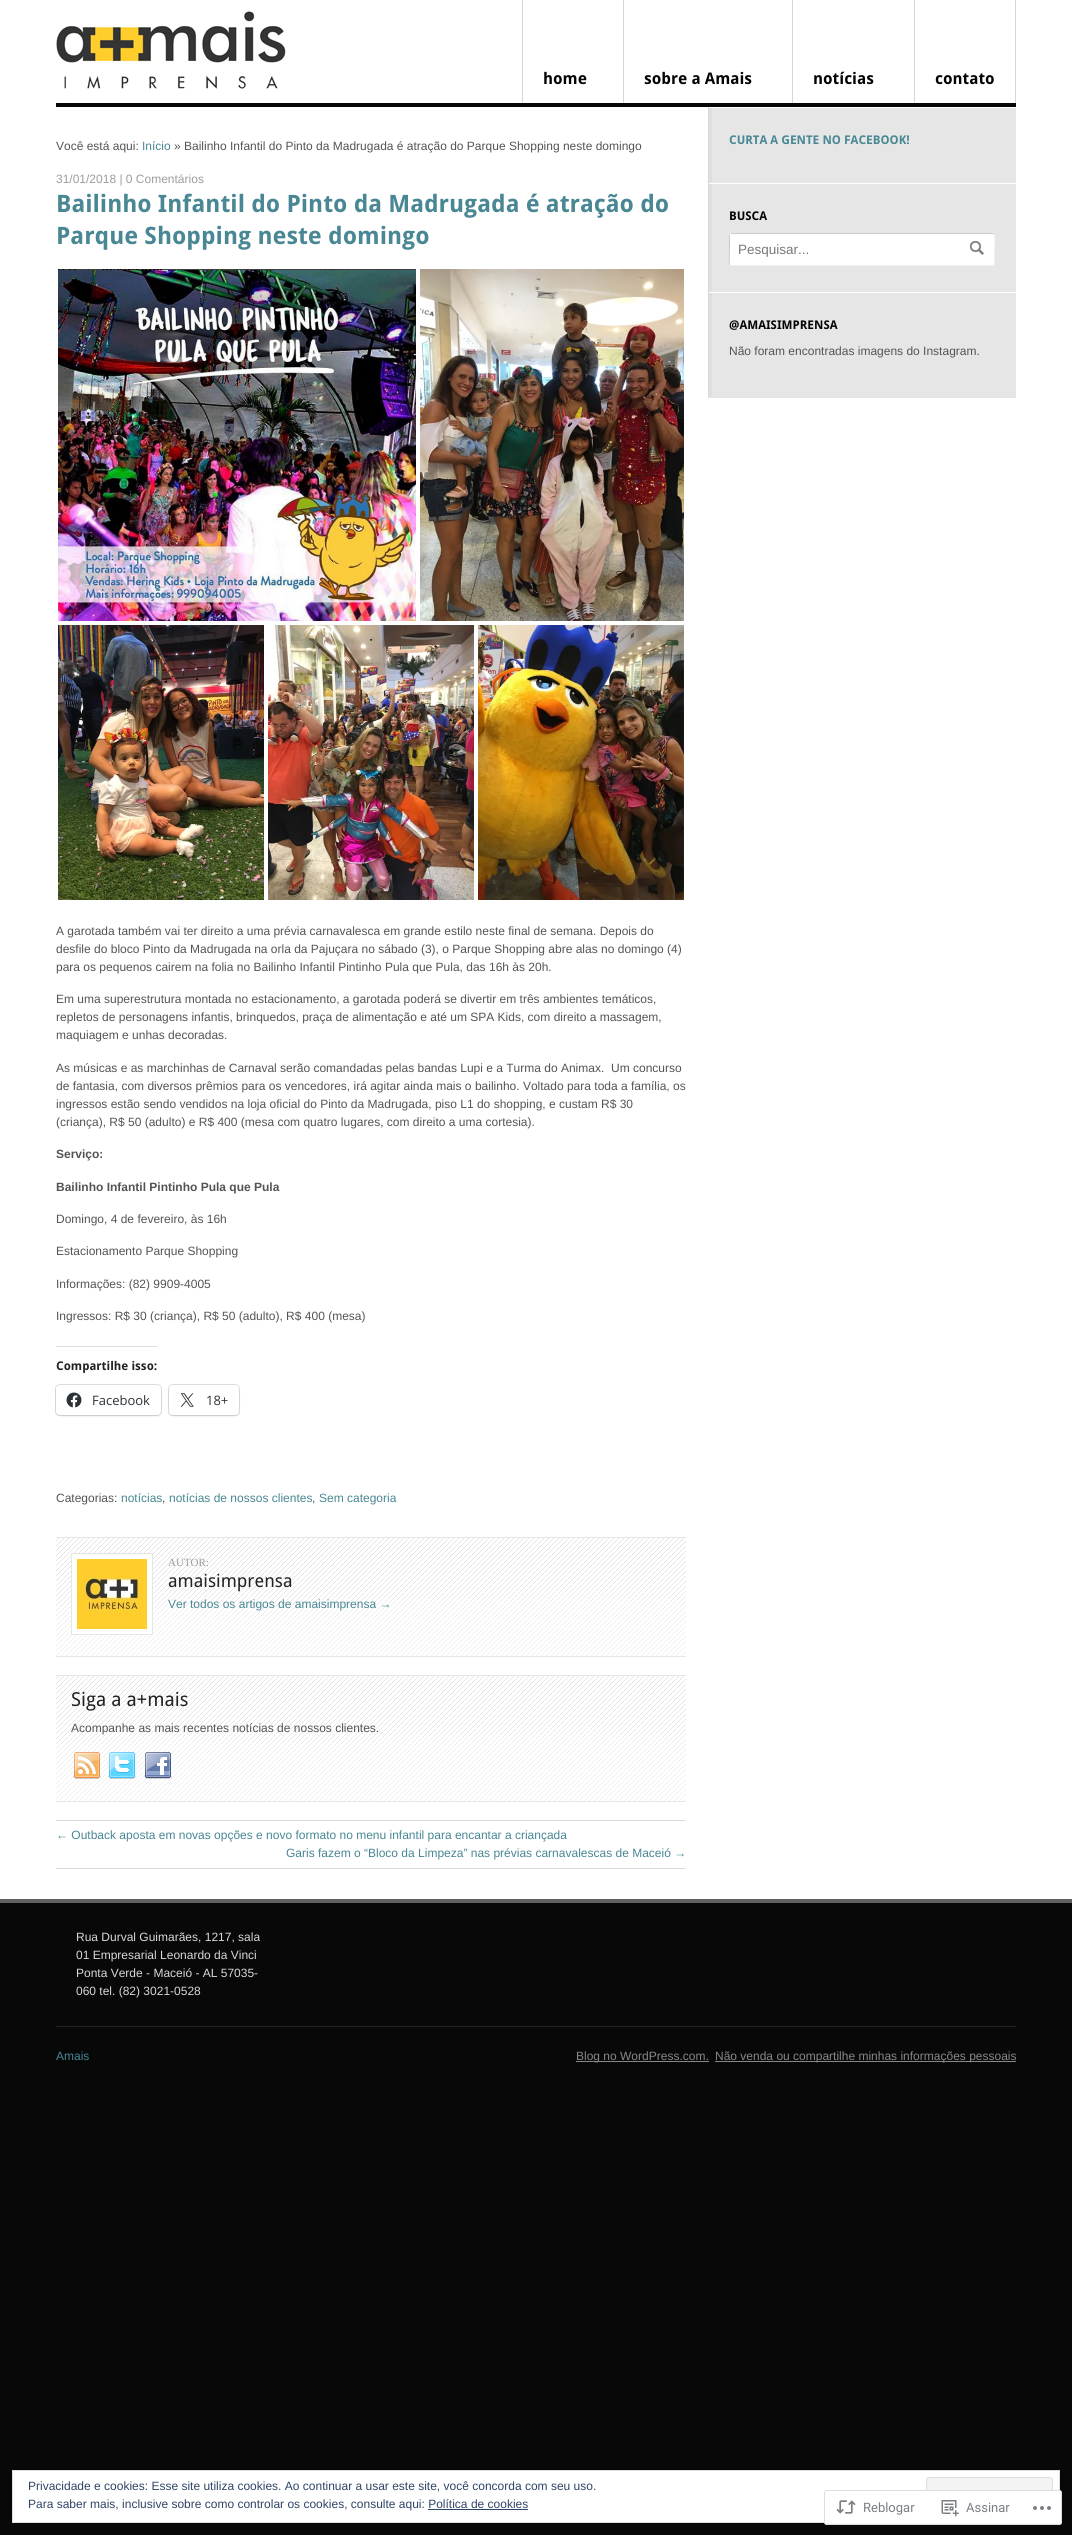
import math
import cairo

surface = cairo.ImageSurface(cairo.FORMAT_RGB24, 1072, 2535)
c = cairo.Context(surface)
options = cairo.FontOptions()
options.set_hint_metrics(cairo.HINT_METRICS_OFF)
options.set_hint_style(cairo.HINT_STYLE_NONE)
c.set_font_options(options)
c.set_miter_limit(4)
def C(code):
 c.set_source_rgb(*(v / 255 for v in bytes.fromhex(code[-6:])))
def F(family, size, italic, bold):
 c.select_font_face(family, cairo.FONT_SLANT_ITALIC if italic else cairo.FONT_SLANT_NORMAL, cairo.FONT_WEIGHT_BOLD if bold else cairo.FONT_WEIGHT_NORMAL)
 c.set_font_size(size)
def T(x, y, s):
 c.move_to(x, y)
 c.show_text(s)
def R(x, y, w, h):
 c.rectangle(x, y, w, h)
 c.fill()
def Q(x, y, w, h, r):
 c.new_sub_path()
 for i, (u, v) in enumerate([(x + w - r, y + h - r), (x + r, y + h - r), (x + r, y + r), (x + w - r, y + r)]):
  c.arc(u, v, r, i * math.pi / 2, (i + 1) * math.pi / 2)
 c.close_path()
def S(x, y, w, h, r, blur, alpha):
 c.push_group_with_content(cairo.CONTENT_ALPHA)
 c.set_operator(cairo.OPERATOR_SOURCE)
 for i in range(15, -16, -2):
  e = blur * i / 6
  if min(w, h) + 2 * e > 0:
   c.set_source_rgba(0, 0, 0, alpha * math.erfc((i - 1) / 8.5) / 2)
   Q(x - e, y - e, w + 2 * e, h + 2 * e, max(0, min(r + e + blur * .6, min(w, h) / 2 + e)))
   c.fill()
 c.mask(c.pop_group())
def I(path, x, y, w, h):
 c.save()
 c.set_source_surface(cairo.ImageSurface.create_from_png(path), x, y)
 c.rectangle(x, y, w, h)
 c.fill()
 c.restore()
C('080808')
c.paint()
C('ffffff')
R(0,0,1072,1899)
I('1.png',56,11,230,78)
C('060606')
R(56,103,960,4)
C('d6d7d7')
R(522,0,1,103)
R(623,0,1,103)
F('Droid Sans',16,0,1)
C('040404')
T(543,84,'home')
C('d6d7d7')
R(792,0,1,103)
C('040404')
T(644,84,'sobre a Amais')
C('d6d7d7')
R(914,0,1,103)
C('040404')
T(813,84,'notícias')
C('d6d7d7')
R(1015,0,1,103)
C('040404')
T(935,84,'contato')
F('Liberation Sans',12,0,0)
C('545454')
T(56,150,'Você está aqui:')
C('488793')
T(142,150,'Início')
C('545454')
T(174,150,'» Bailinho Infantil do Pinto da Madrugada é atração do Parque Shopping neste domingo')
C('9c9c9c')
T(56,183,'31/01/2018 | 0 Comentários')
F('Droid Sans',24,0,1)
C('488793')
T(56,212,'Bailinho Infantil do Pinto da Madrugada é atração do')
T(56,244,'Parque Shopping neste domingo')
I('2.png',58,269,358,352)
I('3.png',420,269,264,352)
I('4.png',58,625,206,275)
I('5.png',268,625,206,275)
I('6.png',478,625,206,275)
F('Liberation Sans',12,0,0)
C('545454')
T(56,935,'A garotada também vai ter direito a uma prévia carnavalesca em grande estilo neste final de semana. Depois do')
T(56,953,'desfile do bloco Pinto da Madrugada na orla da Pajuçara no sábado (3), o Parque Shopping abre alas no domingo (4)')
T(56,971,'para os pequenos cairem na folia no Bailinho Infantil Pintinho Pula que Pula, das 16h às 20h.')
T(56,1003,'Em uma superestrutura montada no estacionamento, a garotada poderá se divertir em três ambientes temáticos,')
T(56,1021,'repletos de personagens infantis, brinquedos, praça de alimentação e até um SPA Kids, com direito a massagem,')
T(56,1039,'maquiagem e unhas decoradas.')
T(56,1072,'As músicas e as marchinhas de Carnaval serão comandadas pelas bandas Lupi e a Turma do Animax.  Um concurso')
T(56,1090,'de fantasia, com diversos prêmios para os vencedores, irá agitar ainda mais o bailinho. Voltado para toda a família, os')
T(56,1108,'ingressos estão sendo vendidos na loja oficial do Pinto da Madrugada, piso L1 do shopping, e custam R$ 30')
T(56,1126,'(criança), R$ 50 (adulto) e R$ 400 (mesa com quatro lugares, com direito a uma cortesia).')
F('Liberation Sans',12,0,1)
T(56,1158,'Serviço:')
T(56,1191,'Bailinho Infantil Pintinho Pula que Pula')
F('Liberation Sans',12,0,0)
T(56,1223,'Domingo, 4 de fevereiro, às 16h')
T(56,1255,'Estacionamento Parque Shopping')
T(56,1288,'Informações: (82) 9909-4005')
T(56,1320,'Ingressos: R$ 30 (criança), R$ 50 (adulto), R$ 400 (mesa)')
C('dcdcde')
R(56,1346,101,1)
F('Droid Sans',12,0,1)
C('222222')
T(56,1370,'Compartilhe isso:')
Q(55.5,1384.5,106,31,4.5)
C('e0e0e0')
c.set_line_width(1)
c.stroke()
C('000000')
S(56,1386,105,30,4,1,.12)
C('ffffff')
Q(56,1385,105,30,4)
c.fill()
I('7.png',66,1392,16,16)
F('Open Sans',13,0,0)
C('2c3338')
T(92,1405,'Facebook')
Q(168.5,1384.5,71,31,4.5)
C('e0e0e0')
c.stroke()
C('000000')
S(169,1386,70,30,4,1,.12)
C('ffffff')
Q(169,1385,70,30,4)
c.fill()
I('8.png',180,1393,14,14)
C('2c3338')
T(206,1405,'18+')
F('Liberation Sans',12,0,0)
C('545454')
T(56,1502,'Categorias:')
C('488793')
T(121,1502,'notícias')
C('545454')
T(162,1502,',')
C('488793')
T(169,1502,'notícias de nossos clientes')
C('545454')
T(312,1502,',')
C('488793')
T(319,1502,'Sem categoria')
I('9.png',56,1538,630,118)
C('e6e6e6')
R(56,1537,630,1)
R(56,1656,630,1)
C('ffffff')
c.rectangle(71.5,1553.5,81,81)
c.fill_preserve()
C('e6e6e6')
c.stroke()
I('10.png',77,1559,70,70)
F('Liberation Serif',11,0,0)
C('9c9c9c')
T(168,1566,'AUTOR:')
F('Droid Sans',18,0,0)
C('222222')
T(168,1587,'amaisimprensa')
F('Liberation Sans',12,0,0)
C('488793')
T(168,1608,'Ver todos os artigos de amaisimprensa →')
I('11.png',56,1676,630,125)
C('e6e6e6')
R(56,1675,630,1)
R(56,1801,630,1)
F('Droid Sans',19.25,0,0)
C('222222')
T(71,1706,'Siga a a+mais')
F('Liberation Sans',12,0,0)
C('545454')
T(71,1732,'Acompanhe as mais recentes notícias de nossos clientes.')
I('12.png',73,1752,28,27)
I('13.png',108,1752,28,27)
I('14.png',144,1752,28,27)
C('d9d9d9')
R(56,1820,630,1)
R(56,1868,630,1)
C('488793')
T(56,1839,'← Outback aposta em novas opções e novo formato no menu infantil para encantar a criançada')
T(286,1857,'Garis fazem o “Bloco da Limpeza” nas prévias carnavalescas de Maceió →')
C('e6e6e6')
R(712,108,304,289)
C('dfdfdf')
R(709,107,3,291)
C('d6d7d7')
R(708,107,1,291)
C('ffffff')
R(709,107,3,1)
C('e4e4e4')
R(709,182,3,1)
F('Droid Sans',12,0,1)
C('488793')
T(729,144,'CURTA A GENTE NO FACEBOOK!')
C('ffffff')
R(709,183,307,1)
C('e4e4e4')
R(709,291,3,1)
C('040404')
T(729,220,'BUSCA')
C('ffffff')
Q(729,233,266,33,3)
c.fill()
c.new_path()
c.move_to(994,234)
c.curve_to(995.5,236,994.5,247,994.5,249.5)
c.line_to(994.5,258.5)
c.curve_to(994.5,260.5,995.5,265.5,992,265.5)
c.line_to(732,265.5)
c.line_to(730,265)
C('efefef')
c.stroke()
c.new_path()
c.move_to(730,265)
c.curve_to(728.5,263,729.5,252,729.5,249.5)
c.line_to(729.5,240.5)
c.curve_to(729.5,238.5,728.5,233.5,732,233.5)
c.line_to(992,233.5)
c.line_to(994,234)
C('cccccc')
c.stroke()
C('ffffff')
R(730,234,2,31)
F('Liberation Sans',13.5,0,0)
C('777777')
T(738,254,'Pesquisar...')
I('15.png',970,241,14,14)
C('ffffff')
R(709,292,307,1)
C('e4e4e4')
R(709,397,307,1)
F('Droid Sans',12,0,1)
C('040404')
T(729,329,'@AMAISIMPRENSA')
F('Liberation Sans',12,0,0)
C('545454')
T(729,355,'Não foram encontradas imagens do Instagram.')
C('616161')
R(0,1899,1072,4)
C('d8d8d8')
T(76,1941,'Rua Durval Guimarães, 1217, sala')
T(76,1959,'01 Empresarial Leonardo da Vinci')
T(76,1977,'Ponta Verde - Maceió - AL 57035-')
T(76,1995,'060 tel. (82) 3021-0528')
C('232220')
R(56,2026,960,1)
C('488793')
T(56,2060,'Amais')
C('888888')
R(576,2061,133,1)
T(576,2060,'Blog no WordPress.com.')
R(715,2061,301,1)
T(715,2060,'Não venda ou compartilhe minhas informações pessoais')
C('ffffff')
c.rectangle(12.5,2470.5,1047,52)
c.fill_preserve()
C('dedede')
c.stroke()
C('2e4467')
T(28,2490,'Privacidade e cookies: Esse site utiliza cookies. Ao continuar a usar este site, você concorda com seu uso.')
C('f3f3f3')
Q(926.5,2477.5,126,38,2.5)
c.fill_preserve()
C('dedede')
c.stroke()
C('2e4467')
T(28,2508,'Para saber mais, inclusive sobre como controlar os cookies, consulte aqui: Política de cookies')
R(428,2509,100,1)
c.set_source_rgba(1,1,1,0.98)
Q(824,2490,238,35,3)
c.fill()
Q(824.5,2490.5,237,34,2.5)
c.set_source_rgba(0.863,0.863,0.871,0.98)
c.stroke()
I('16.png',836,2500,20,14)
F('Roboto',13,0,0)
C('7b7f85')
T(863,2512,'Reblogar')
I('17.png',941,2500,18,17)
T(966,2512,'Assinar')
I('18.png',1033,2506,18,4)
surface.write_to_png('o.png')
